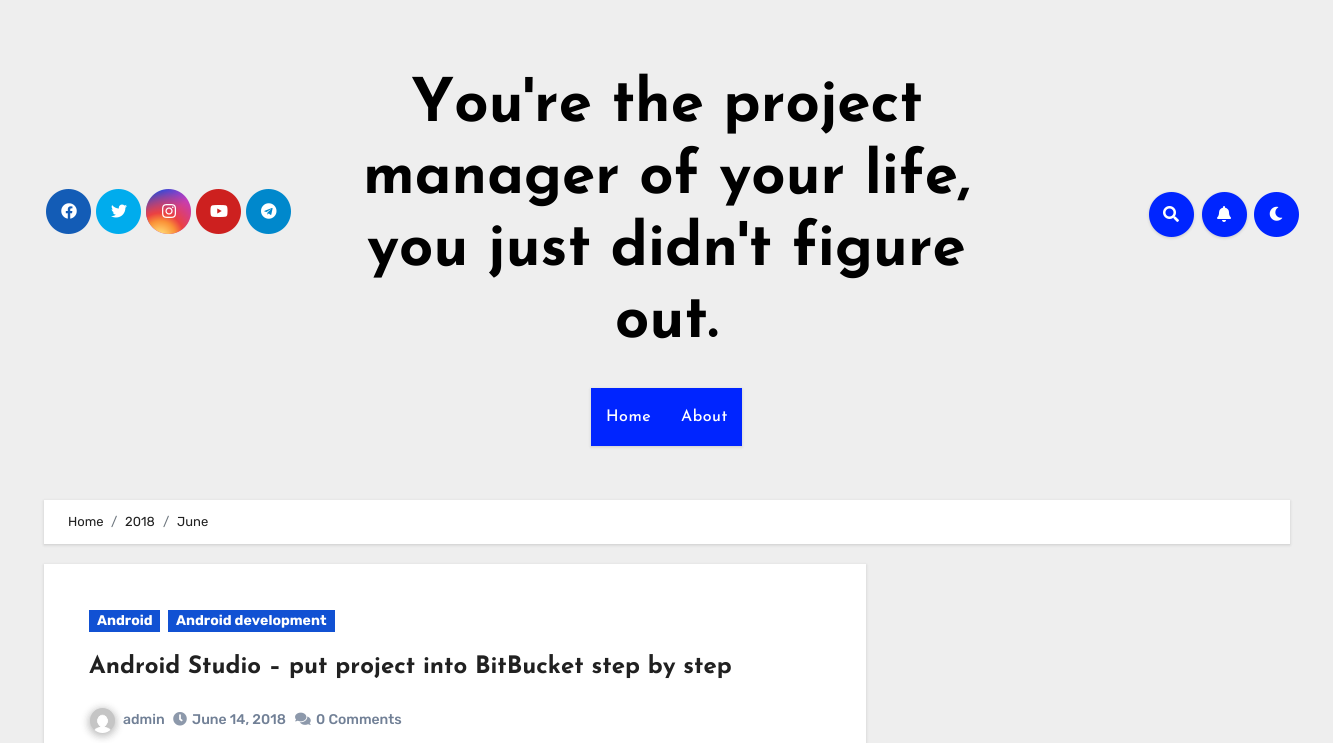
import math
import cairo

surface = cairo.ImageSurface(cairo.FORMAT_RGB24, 1333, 743)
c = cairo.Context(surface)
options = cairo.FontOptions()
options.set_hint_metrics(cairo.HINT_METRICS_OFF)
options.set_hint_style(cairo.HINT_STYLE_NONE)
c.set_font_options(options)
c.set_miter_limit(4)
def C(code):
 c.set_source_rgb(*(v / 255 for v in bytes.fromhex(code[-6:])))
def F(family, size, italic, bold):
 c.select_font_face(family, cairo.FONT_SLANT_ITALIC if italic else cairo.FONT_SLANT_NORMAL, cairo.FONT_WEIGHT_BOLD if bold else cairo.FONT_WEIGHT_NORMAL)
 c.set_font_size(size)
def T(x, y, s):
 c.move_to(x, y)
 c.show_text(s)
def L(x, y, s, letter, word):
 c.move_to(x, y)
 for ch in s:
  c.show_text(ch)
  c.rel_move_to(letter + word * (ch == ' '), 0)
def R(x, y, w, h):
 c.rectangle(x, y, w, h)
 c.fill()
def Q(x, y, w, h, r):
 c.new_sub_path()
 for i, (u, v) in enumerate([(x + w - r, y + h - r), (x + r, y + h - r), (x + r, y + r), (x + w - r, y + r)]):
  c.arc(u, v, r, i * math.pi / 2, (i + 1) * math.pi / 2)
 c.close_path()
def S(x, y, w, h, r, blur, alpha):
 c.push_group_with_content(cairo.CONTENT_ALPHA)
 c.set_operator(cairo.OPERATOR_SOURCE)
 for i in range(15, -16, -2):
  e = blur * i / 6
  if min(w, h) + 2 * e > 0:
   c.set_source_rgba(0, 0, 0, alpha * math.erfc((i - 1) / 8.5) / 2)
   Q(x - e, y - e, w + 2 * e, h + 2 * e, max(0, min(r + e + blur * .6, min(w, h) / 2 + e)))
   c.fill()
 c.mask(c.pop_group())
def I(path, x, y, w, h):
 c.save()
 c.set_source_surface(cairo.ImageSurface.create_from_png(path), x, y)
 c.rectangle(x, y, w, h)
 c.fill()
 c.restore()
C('eeeeee')
c.paint()
C('135cb6')
c.arc(68.5,211.5,22.5,0,2 * math.pi)
c.fill()
I('1.png',61,203,16,16)
C('00aced')
c.arc(118.5,211.5,22.5,0,2 * math.pi)
c.fill()
I('2.png',111,204,16,14)
gradient = cairo.LinearGradient(146,189,191,234)
gradient.add_color_stop_rgba(.12,0.137,0.294,0.843,1)
gradient.add_color_stop_rgba(.58,0.765,0.235,0.745,1)
c.set_source(gradient)
c.arc(168.5,211.5,22.5,0,2 * math.pi)
c.fill()
gradient = cairo.RadialGradient(160,237,0,160,237,57)
gradient.add_color_stop_rgba(0,1,0.882,0.49,1)
gradient.add_color_stop_rgba(.1,1,0.804,0.412,1)
gradient.add_color_stop_rgba(.28,0.98,0.569,0.216,1)
gradient.add_color_stop_rgba(.42,0.922,0.255,0.255,1)
gradient.add_color_stop_rgba(.82,0.922,0.255,0.255,0)
c.set_source(gradient)
c.arc(168.5,211.5,22.5,0,2 * math.pi)
c.fill()
I('3.png',162,204,15,14)
C('cd201f')
c.arc(218.5,211.5,22.5,0,2 * math.pi)
c.fill()
I('4.png',210,205,18,12)
C('0088cc')
c.arc(268.5,211.5,22.5,0,2 * math.pi)
c.fill()
I('5.png',261,203,16,16)
F('Josefin Sans',60,0,1)
C('000000')
T(411,121,'You\'re the project')
T(363,193,'manager of your life,')
T(367,265,'you just didn\'t figure')
T(615,337,'out.')
C('000000')
S(1149,193,45,45,22.5,1.5,.15)
C('0025ff')
c.arc(1171.5,214.5,22.5,0,2 * math.pi)
c.fill()
I('6.png',1163,206,16,16)
C('000000')
S(1202,193,45,45,22.5,1.5,.15)
C('0025ff')
c.arc(1224.5,214.5,22.5,0,2 * math.pi)
c.fill()
I('7.png',1217,206,14,16)
c.arc(1276.5,214.5,22.5,0,2 * math.pi)
c.fill()
I('8.png',1269,206,14,15)
C('000000')
S(591,389,151,58,0,1.5,.15)
C('0025ff')
R(591,388,151,58)
F('Josefin Sans Medium',16,0,0)
C('ffffff')
L(606,421,'Home',.5,0)
L(681,421,'About',.5,0)
C('000000')
S(44,501,1246,44,0,1.5,.15)
C('ffffff')
R(44,500,1246,44)
F('Rubik Light',13,0,0)
C('212121')
T(68,526,'Home')
C('6c757d')
T(111,526,'/')
C('212121')
T(125,526,'2018')
C('6c757d')
T(163,526,'/')
C('212121')
T(177,526,'June')
C('000000')
S(44,565,822,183,0,1.5,.15)
C('ffffff')
R(44,564,822,179)
C('1151d3')
R(89,610,71,22)
F('Rubik',14,0,1)
C('ffffff')
T(97,625,'Android')
C('1151d3')
R(168,610,167,22)
C('ffffff')
T(176,625,'Android development')
F('Josefin Sans',24,0,1)
C('212121')
T(89,673,'Android Studio – put project into BitBucket step by step')
C('212121')
S(89,709,27,27,13.5,4,.3)
I('9.png',90,708,25,25)
F('Rubik Medium',14,0,0)
C('718096')
T(123,724,'admin')
I('10.png',173,712,14,14)
T(192,724,'June 14, 2018')
I('11.png',295,712,16,13)
T(316,724,'0 Comments')
surface.write_to_png('o.png')
